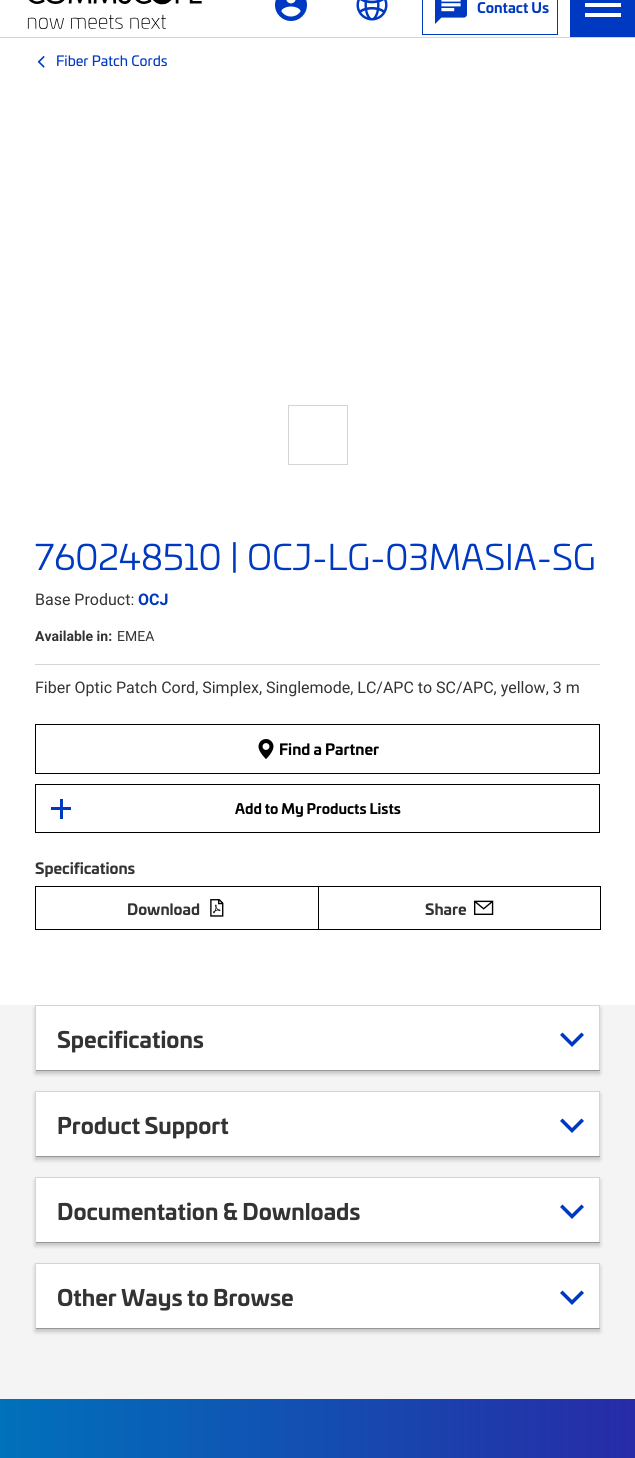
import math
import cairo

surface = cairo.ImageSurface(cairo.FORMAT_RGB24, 635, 1458)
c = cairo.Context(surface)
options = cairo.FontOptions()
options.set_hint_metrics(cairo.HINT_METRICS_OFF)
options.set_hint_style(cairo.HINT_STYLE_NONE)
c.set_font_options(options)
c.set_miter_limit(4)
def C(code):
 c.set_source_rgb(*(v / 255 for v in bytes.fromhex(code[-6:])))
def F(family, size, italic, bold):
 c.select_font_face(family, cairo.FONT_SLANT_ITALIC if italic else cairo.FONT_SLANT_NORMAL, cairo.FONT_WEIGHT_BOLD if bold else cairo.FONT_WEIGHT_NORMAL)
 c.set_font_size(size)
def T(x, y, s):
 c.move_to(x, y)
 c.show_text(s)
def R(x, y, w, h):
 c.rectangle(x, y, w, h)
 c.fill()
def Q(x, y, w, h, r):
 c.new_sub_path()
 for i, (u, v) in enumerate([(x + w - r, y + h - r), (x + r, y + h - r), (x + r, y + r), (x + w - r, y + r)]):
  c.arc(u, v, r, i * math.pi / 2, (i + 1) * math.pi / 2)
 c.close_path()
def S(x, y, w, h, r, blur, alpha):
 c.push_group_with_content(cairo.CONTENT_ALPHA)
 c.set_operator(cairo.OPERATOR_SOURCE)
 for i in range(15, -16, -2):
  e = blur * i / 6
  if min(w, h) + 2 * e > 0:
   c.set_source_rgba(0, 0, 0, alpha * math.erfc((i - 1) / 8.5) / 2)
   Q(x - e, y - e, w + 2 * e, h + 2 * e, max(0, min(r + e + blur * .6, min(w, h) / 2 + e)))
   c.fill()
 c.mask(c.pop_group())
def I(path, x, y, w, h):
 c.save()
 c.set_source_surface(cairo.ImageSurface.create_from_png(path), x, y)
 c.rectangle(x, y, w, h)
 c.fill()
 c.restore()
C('ffffff')
c.paint()
C('d4d4d4')
R(0,37,635,1)
I('1.png',27,0,175,29)
I('2.png',275,0,32,21)
I('3.png',356,0,32,21)
c.rectangle(422.5,-.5,135,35)
C('0039c1')
c.set_line_width(1)
c.stroke()
I('4.png',435,0,32,24)
F('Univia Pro',14,0,1)
T(477,13,'Contact Us')
R(570,0,65,37)
C('ffffff')
c.set_fill_rule(cairo.FILL_RULE_EVEN_ODD)
c.new_path()
c.move_to(585,17)
c.line_to(621,17)
c.line_to(621,13)
c.line_to(585,13)
c.close_path()
c.move_to(585,7)
c.line_to(621,7)
c.line_to(621,3)
c.line_to(585,3)
c.close_path()
c.move_to(585,-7)
c.line_to(585,-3)
c.line_to(621,-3)
c.line_to(621,-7)
c.close_path()
c.fill()
I('5.png',37,55,8,13)
F('Univia Pro',14,0,0)
C('0039c1')
T(56,66,'Fiber Patch Cords')
c.rectangle(288.5,405.5,59,59)
C('d4d4d4')
c.stroke()
R(35,664,565,1)
F('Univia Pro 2',35,0,0)
C('0039c1')
T(35,570,'760248510 | OCJ-LG-03MASIA-SG')
F('Roboto',16,0,0)
C('333333')
T(35,605,'Base Product:')
F('Roboto',16,0,1)
C('0039c1')
T(138,605,'OCJ')
F('Roboto',14,0,1)
C('333333')
T(35,641,'Available in:')
F('Roboto',14,0,0)
T(117,641,'EMEA')
F('Roboto',16,0,0)
T(35,693,'Fiber Optic Patch Cord, Simplex, Singlemode, LC/APC to SC/APC, yellow, 3 m')
c.rectangle(35.5,724.5,564,49)
C('000000')
c.stroke()
I('6.png',258,739,16,20)
F('Univia Pro',15,0,1)
T(279,755,'Find a Partner')
c.rectangle(35.5,784.5,564,48)
c.stroke()
C('0039c1')
R(60,799,3,20)
F('Univia Pro',14,0,1)
C('000000')
T(235,814,'Add to My Products Lists')
C('0039c1')
R(51,807,20,3)
F('Univia Pro',15,0,1)
C('333333')
T(35,874,'Specifications')
c.rectangle(35.5,886.5,283,43)
C('000000')
c.stroke()
C('333333')
T(127,915,'Download')
I('7.png',210,899,14,18)
c.rectangle(318.5,886.5,282,43)
C('000000')
c.stroke()
C('333333')
T(425,915,'Share')
I('8.png',474,900,20,15)
C('f4f4f4')
R(0,1005,635,394)
C('000000')
S(35,1008,565,66,0,2,.2)
C('ffffff')
R(36,1006,563,64)
C('d4d4d4')
R(35,1005,565,1)
R(599,1005,1,66)
C('979797')
R(35,1070,565,1)
C('d4d4d4')
R(35,1005,1,66)
F('Univia Pro',22,0,1)
C('333333')
T(57,1048,'Specifications')
C('0039c1')
c.set_fill_rule(cairo.FILL_RULE_WINDING)
c.new_path()
c.move_to(572,1047)
c.line_to(584,1035)
c.line_to(581.5,1032.5)
c.line_to(572,1042)
c.line_to(562.5,1032.5)
c.line_to(560,1035)
c.close_path()
c.fill()
C('000000')
S(35,1094,565,66,0,2,.2)
C('ffffff')
R(36,1092,563,64)
C('d4d4d4')
R(35,1091,565,1)
R(599,1091,1,66)
C('979797')
R(35,1156,565,1)
C('d4d4d4')
R(35,1091,1,66)
C('333333')
T(57,1134,'Product Support')
C('0039c1')
c.new_path()
c.move_to(572,1133)
c.line_to(584,1121)
c.line_to(581.5,1118.5)
c.line_to(572,1128)
c.line_to(562.5,1118.5)
c.line_to(560,1121)
c.close_path()
c.fill()
C('000000')
S(35,1180,565,66,0,2,.2)
C('ffffff')
R(36,1178,563,64)
C('d4d4d4')
R(35,1177,565,1)
R(599,1177,1,66)
C('979797')
R(35,1242,565,1)
C('d4d4d4')
R(35,1177,1,66)
C('333333')
T(57,1220,'Documentation & Downloads')
C('0039c1')
c.new_path()
c.move_to(572,1219)
c.line_to(584,1207)
c.line_to(581.5,1204.5)
c.line_to(572,1214)
c.line_to(562.5,1204.5)
c.line_to(560,1207)
c.close_path()
c.fill()
C('000000')
S(35,1266,565,66,0,2,.2)
C('ffffff')
R(36,1264,563,64)
C('d4d4d4')
R(35,1263,565,1)
R(599,1263,1,66)
C('979797')
R(35,1328,565,1)
C('d4d4d4')
R(35,1263,1,66)
C('333333')
T(57,1306,'Other Ways to Browse')
C('0039c1')
c.new_path()
c.move_to(572,1305)
c.line_to(584,1293)
c.line_to(581.5,1290.5)
c.line_to(572,1300)
c.line_to(562.5,1290.5)
c.line_to(560,1293)
c.close_path()
c.fill()
gradient = cairo.LinearGradient(0,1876,635,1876)
gradient.add_color_stop_rgba(0,0,0.443,0.733,1)
gradient.add_color_stop_rgba(1,0.153,0.169,0.655,1)
c.set_source(gradient)
R(0,1399,635,59)
surface.write_to_png('o.png')
